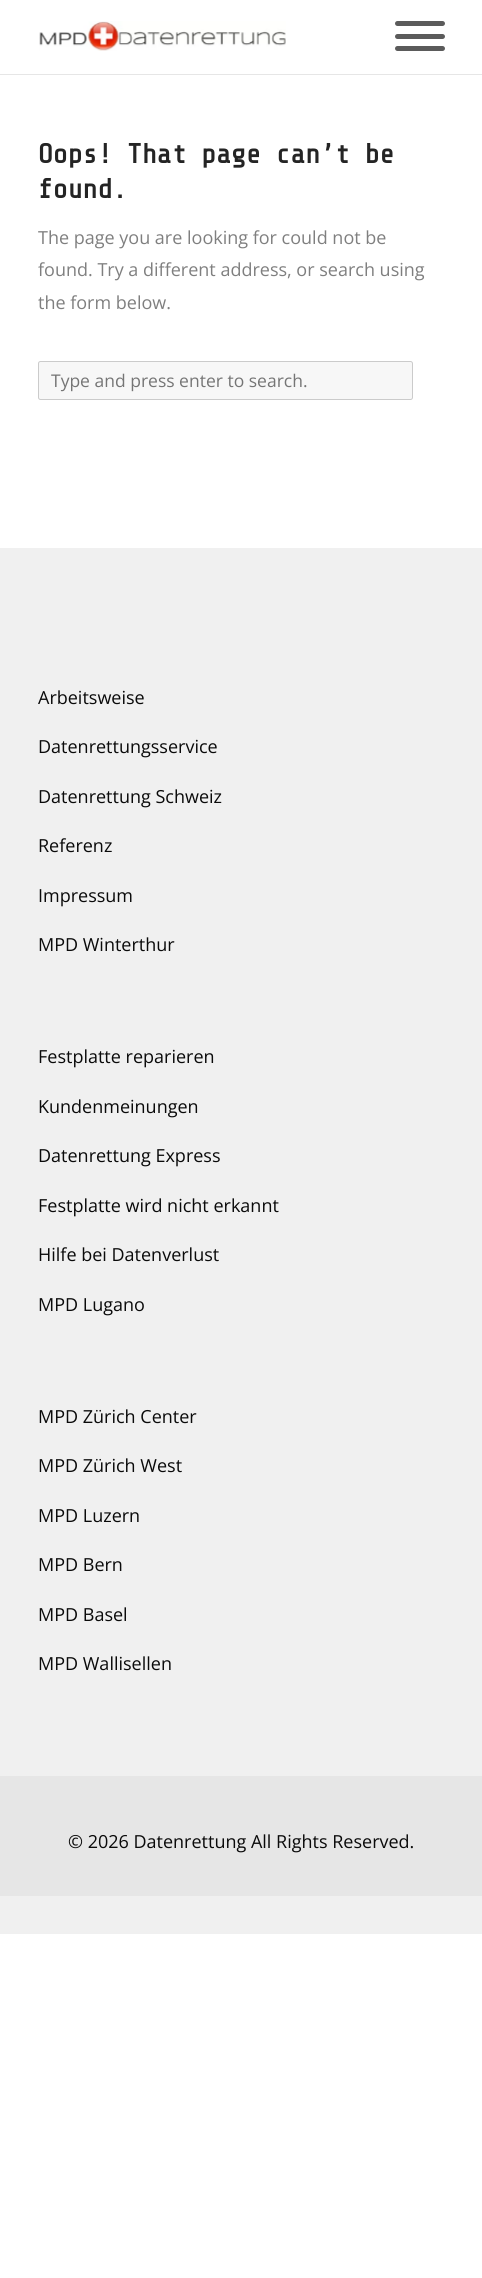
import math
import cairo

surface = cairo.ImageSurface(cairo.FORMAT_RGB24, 482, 2278)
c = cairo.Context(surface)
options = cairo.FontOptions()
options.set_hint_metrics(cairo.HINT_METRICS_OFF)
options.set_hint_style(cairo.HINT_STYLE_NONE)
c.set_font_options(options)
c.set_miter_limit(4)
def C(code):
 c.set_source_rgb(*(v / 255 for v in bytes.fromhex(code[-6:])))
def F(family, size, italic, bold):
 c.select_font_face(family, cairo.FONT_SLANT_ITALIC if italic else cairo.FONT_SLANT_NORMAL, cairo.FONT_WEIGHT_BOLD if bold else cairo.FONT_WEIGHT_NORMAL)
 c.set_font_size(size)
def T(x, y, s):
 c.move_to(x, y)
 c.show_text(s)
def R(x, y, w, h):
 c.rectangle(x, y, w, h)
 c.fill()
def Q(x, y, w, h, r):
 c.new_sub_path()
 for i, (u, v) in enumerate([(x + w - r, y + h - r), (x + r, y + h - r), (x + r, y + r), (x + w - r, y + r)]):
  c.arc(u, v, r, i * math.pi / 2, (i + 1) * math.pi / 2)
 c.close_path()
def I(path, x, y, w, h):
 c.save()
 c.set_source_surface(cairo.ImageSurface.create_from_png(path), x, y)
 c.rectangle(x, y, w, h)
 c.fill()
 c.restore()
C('ffffff')
c.paint()
C('e6e6e6')
c.new_path()
c.move_to(0,74)
c.line_to(0,75)
c.line_to(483,75)
c.line_to(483,0)
c.line_to(482,0)
c.line_to(482,74)
c.close_path()
c.fill()
I('1.png',39,21,247,30)
C('5b5b5b')
Q(395,34,50,5,2.5)
c.fill()
Q(395,21,50,5,2.5)
c.fill()
Q(395,46,50,5,2.5)
c.fill()
F('Share Tech Mono',27.5,0,1)
C('242424')
T(38,163,'Oops! That page can’t be')
T(38,198,'found.')
F('Open Sans',18,0,0)
C('7f7f7f')
T(38,244,'The page you are looking for could not be')
T(38,276,'found. Try a different address, or search using')
T(38,309,'the form below.')
C('f7f7f7')
Q(38.5,361.5,374,38,2)
c.fill_preserve()
C('cbcbcb')
c.set_line_width(1)
c.stroke()
F('Open Sans',17.5,0,0)
C('757575')
T(51,387,'Type and press enter to search.')
C('f0f0f0')
R(0,548,482,1386)
F('Open Sans',18,0,0)
C('0a0a0a')
T(38,704,'Arbeitsweise')
T(38,753,'Datenrettungsservice')
T(38,803,'Datenrettung Schweiz')
T(38,852,'Referenz')
T(38,902,'Impressum')
T(38,951,'MPD Winterthur')
T(38,1063,'Festplatte reparieren')
T(38,1113,'Kundenmeinungen')
T(38,1162,'Datenrettung Express')
T(38,1212,'Festplatte wird nicht erkannt')
T(38,1261,'Hilfe bei Datenverlust')
T(38,1311,'MPD Lugano')
T(38,1423,'MPD Zürich Center')
T(38,1472,'MPD Zürich West')
T(38,1522,'MPD Luzern')
T(38,1571,'MPD Bern')
T(38,1621,'MPD Basel')
T(38,1670,'MPD Wallisellen')
C('e6e6e6')
R(0,1776,482,120)
C('0a0a0a')
T(68,1848,'© 2026 Datenrettung All Rights Reserved.')
surface.write_to_png('o.png')
